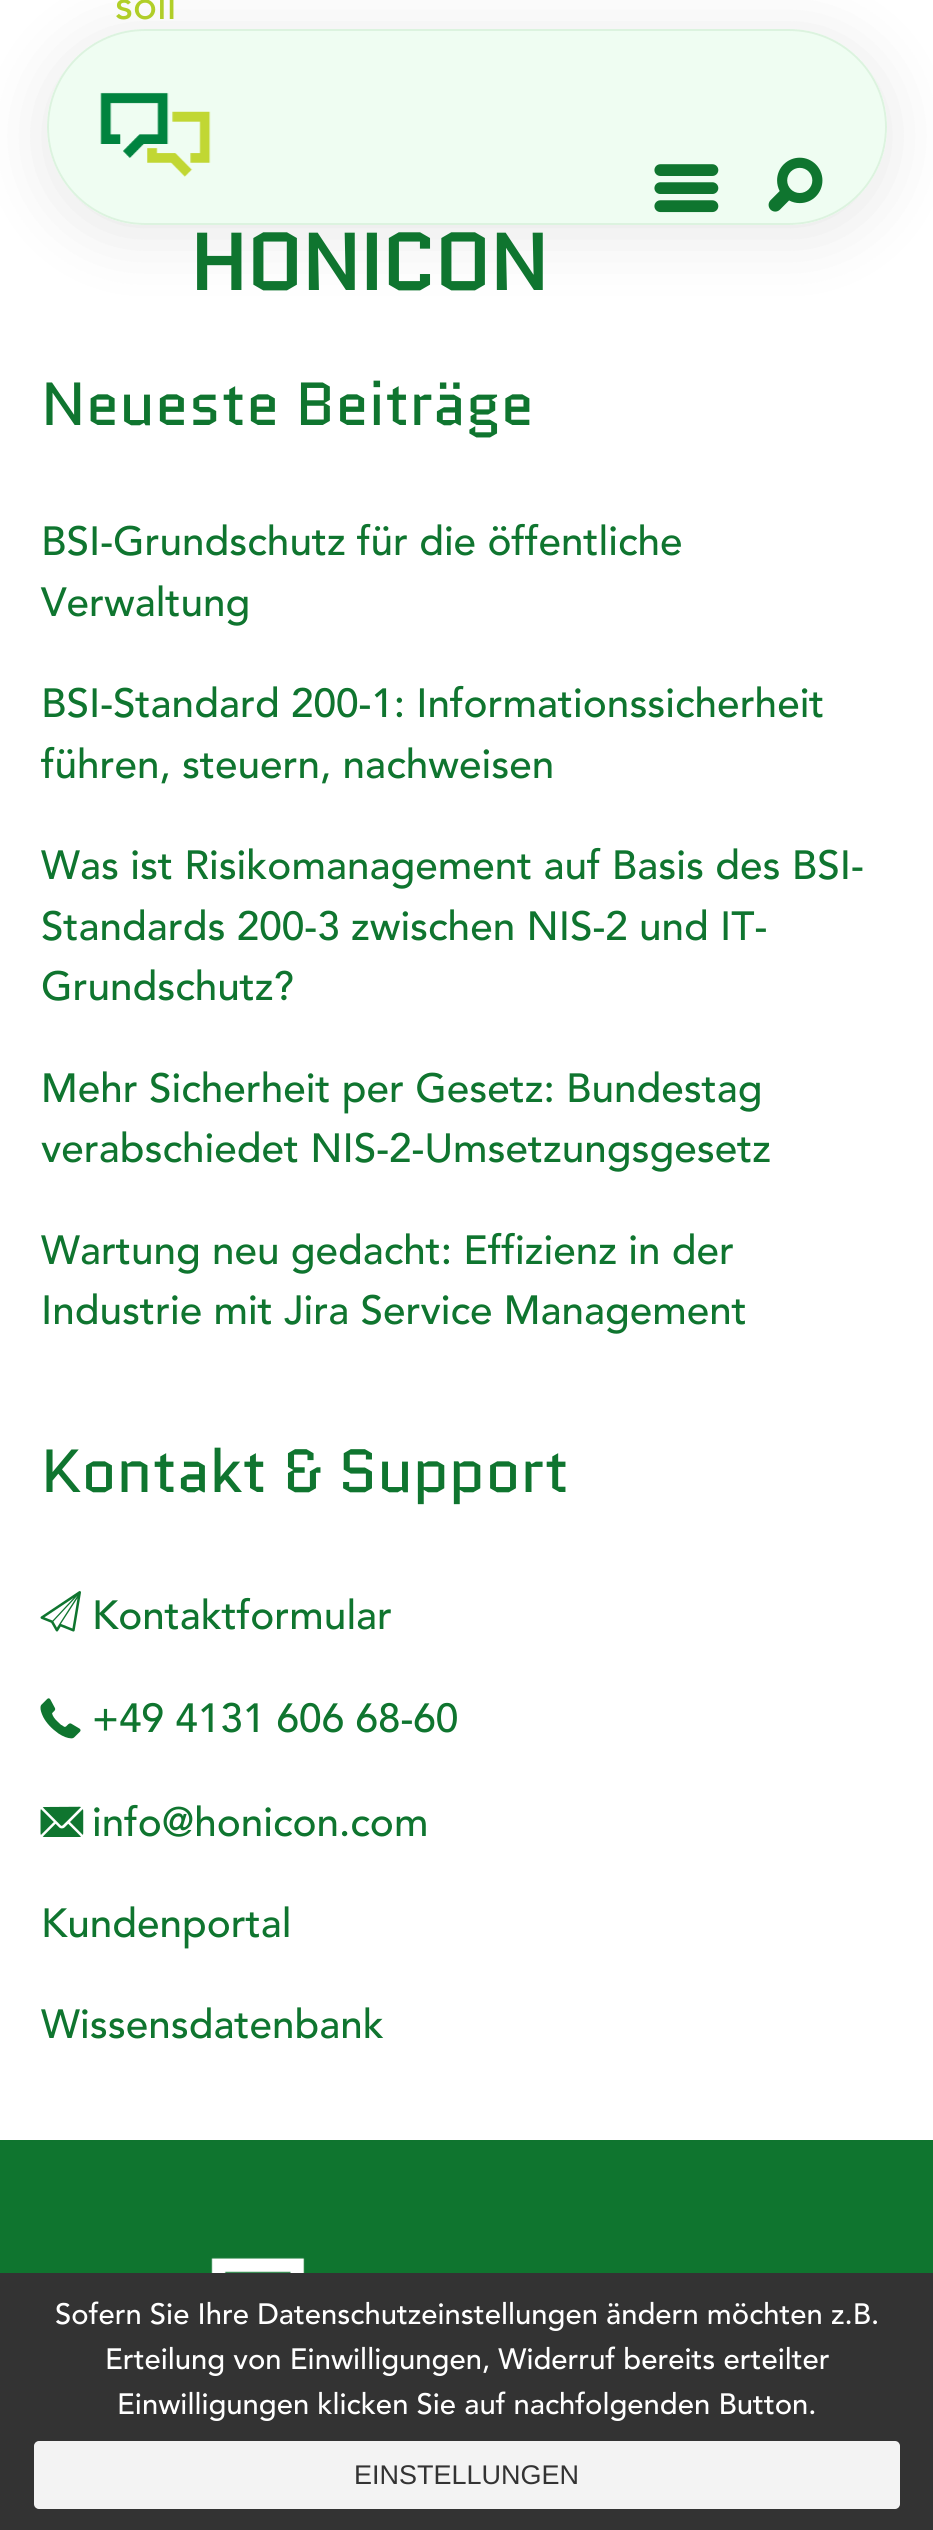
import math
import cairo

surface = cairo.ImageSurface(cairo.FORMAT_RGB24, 933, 2530)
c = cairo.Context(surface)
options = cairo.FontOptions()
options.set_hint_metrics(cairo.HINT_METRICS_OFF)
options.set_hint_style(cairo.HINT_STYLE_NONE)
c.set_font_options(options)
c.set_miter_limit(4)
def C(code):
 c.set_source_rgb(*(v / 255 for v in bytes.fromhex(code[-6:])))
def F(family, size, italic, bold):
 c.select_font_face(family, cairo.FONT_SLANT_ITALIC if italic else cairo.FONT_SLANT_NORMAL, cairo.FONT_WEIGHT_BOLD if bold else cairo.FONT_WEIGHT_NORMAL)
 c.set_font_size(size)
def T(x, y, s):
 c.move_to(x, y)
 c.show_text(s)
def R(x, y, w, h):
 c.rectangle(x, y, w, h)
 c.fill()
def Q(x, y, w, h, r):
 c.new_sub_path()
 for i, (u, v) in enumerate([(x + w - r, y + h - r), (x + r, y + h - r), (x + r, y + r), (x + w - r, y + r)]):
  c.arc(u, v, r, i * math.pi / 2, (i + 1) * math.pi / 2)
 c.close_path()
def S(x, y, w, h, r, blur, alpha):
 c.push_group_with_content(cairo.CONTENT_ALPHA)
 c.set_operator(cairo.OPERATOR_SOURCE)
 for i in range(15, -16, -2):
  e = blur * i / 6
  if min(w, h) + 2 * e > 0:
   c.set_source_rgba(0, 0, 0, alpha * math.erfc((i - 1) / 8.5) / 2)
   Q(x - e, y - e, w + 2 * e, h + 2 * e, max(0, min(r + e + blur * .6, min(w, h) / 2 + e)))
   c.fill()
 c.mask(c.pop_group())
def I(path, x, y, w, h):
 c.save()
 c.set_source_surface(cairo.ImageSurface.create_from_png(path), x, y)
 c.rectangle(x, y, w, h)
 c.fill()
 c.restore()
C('ffffff')
c.paint()
F('Avenir Medium',40.5,0,0)
C('b4d229')
T(115,19,'soll')
F('Quantico',60.75,0,0)
C('0f752f')
T(41,425,'Neueste Beiträge')
F('Avenir Medium',40.5,0,0)
T(41,555,'BSI-Grundschutz für die öffentliche')
T(41,616,'Verwaltung')
T(41,717,'BSI-Standard 200-1: Informationssicherheit')
T(41,778,'führen, steuern, nachweisen')
T(41,879,'Was ist Risikomanagement auf Basis des BSI-')
T(41,940,'Standards 200-3 zwischen NIS-2 und IT-')
T(41,1000,'Grundschutz?')
T(41,1102,'Mehr Sicherheit per Gesetz: Bundestag')
T(41,1162,'verabschiedet NIS-2-Umsetzungsgesetz')
T(41,1264,'Wartung neu gedacht: Effizienz in der')
T(41,1324,'Industrie mit Jira Service Management')
F('Quantico',60.75,0,0)
T(41,1492,'Kontakt & Support')
I('1.png',40,1591,41,41)
F('Avenir Medium',40.5,0,0)
T(92,1629,'Kontaktformular')
I('2.png',40,1698,41,41)
T(92,1732,'+49 4131 606 68-60')
I('3.png',40,1806,44,31)
T(92,1836,'info@honicon.com')
T(41,1937,'Kundenportal')
T(41,2038,'Wissensdatenbank')
c.save()
c.set_fill_rule(cairo.FILL_RULE_EVEN_ODD)
c.new_path()
c.move_to(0,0)
c.line_to(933,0)
c.line_to(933,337)
c.line_to(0,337)
c.close_path()
c.move_to(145,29)
c.line_to(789,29)
c.curve_to(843,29,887,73,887,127)
c.curve_to(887,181,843,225,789,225)
c.line_to(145,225)
c.curve_to(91,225,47,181,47,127)
c.curve_to(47,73,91,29,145,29)
c.close_path()
c.clip()
C('000000')
S(47,38,840,196,98,34,.1)
c.restore()
c.set_source_rgba(0.918,0.988,0.937,0.8)
Q(47,29,840,196,98)
c.fill()
Q(48,30,838,194,97)
c.set_source_rgba(0,0.502,0,0.08)
c.stroke()
I('4.png',654,164,65,49)
I('5.png',768,157,55,55)
I('6.png',100,92,111,85)
F('Quantico',78.75,0,1)
C('0f752f')
T(190,290,'HONICON')
R(0,2140,933,133)
I('7.png',211,2257,94,16)
C('333333')
R(0,2273,933,257)
F('Avenir Medium',29.25,0,0)
C('ffffff')
T(55,2324,'Sofern Sie Ihre Datenschutzeinstellungen ändern möchten z.B.')
T(105,2369,'Erteilung von Einwilligungen, Widerruf bereits erteilter')
T(117,2414,'Einwilligungen klicken Sie auf nachfolgenden Button.')
C('f3f3f3')
Q(35,2442,864,66,4)
c.fill_preserve()
c.stroke()
F('Liberation Sans',27,0,0)
C('333333')
T(354,2484,'EINSTELLUNGEN')
surface.write_to_png('o.png')
